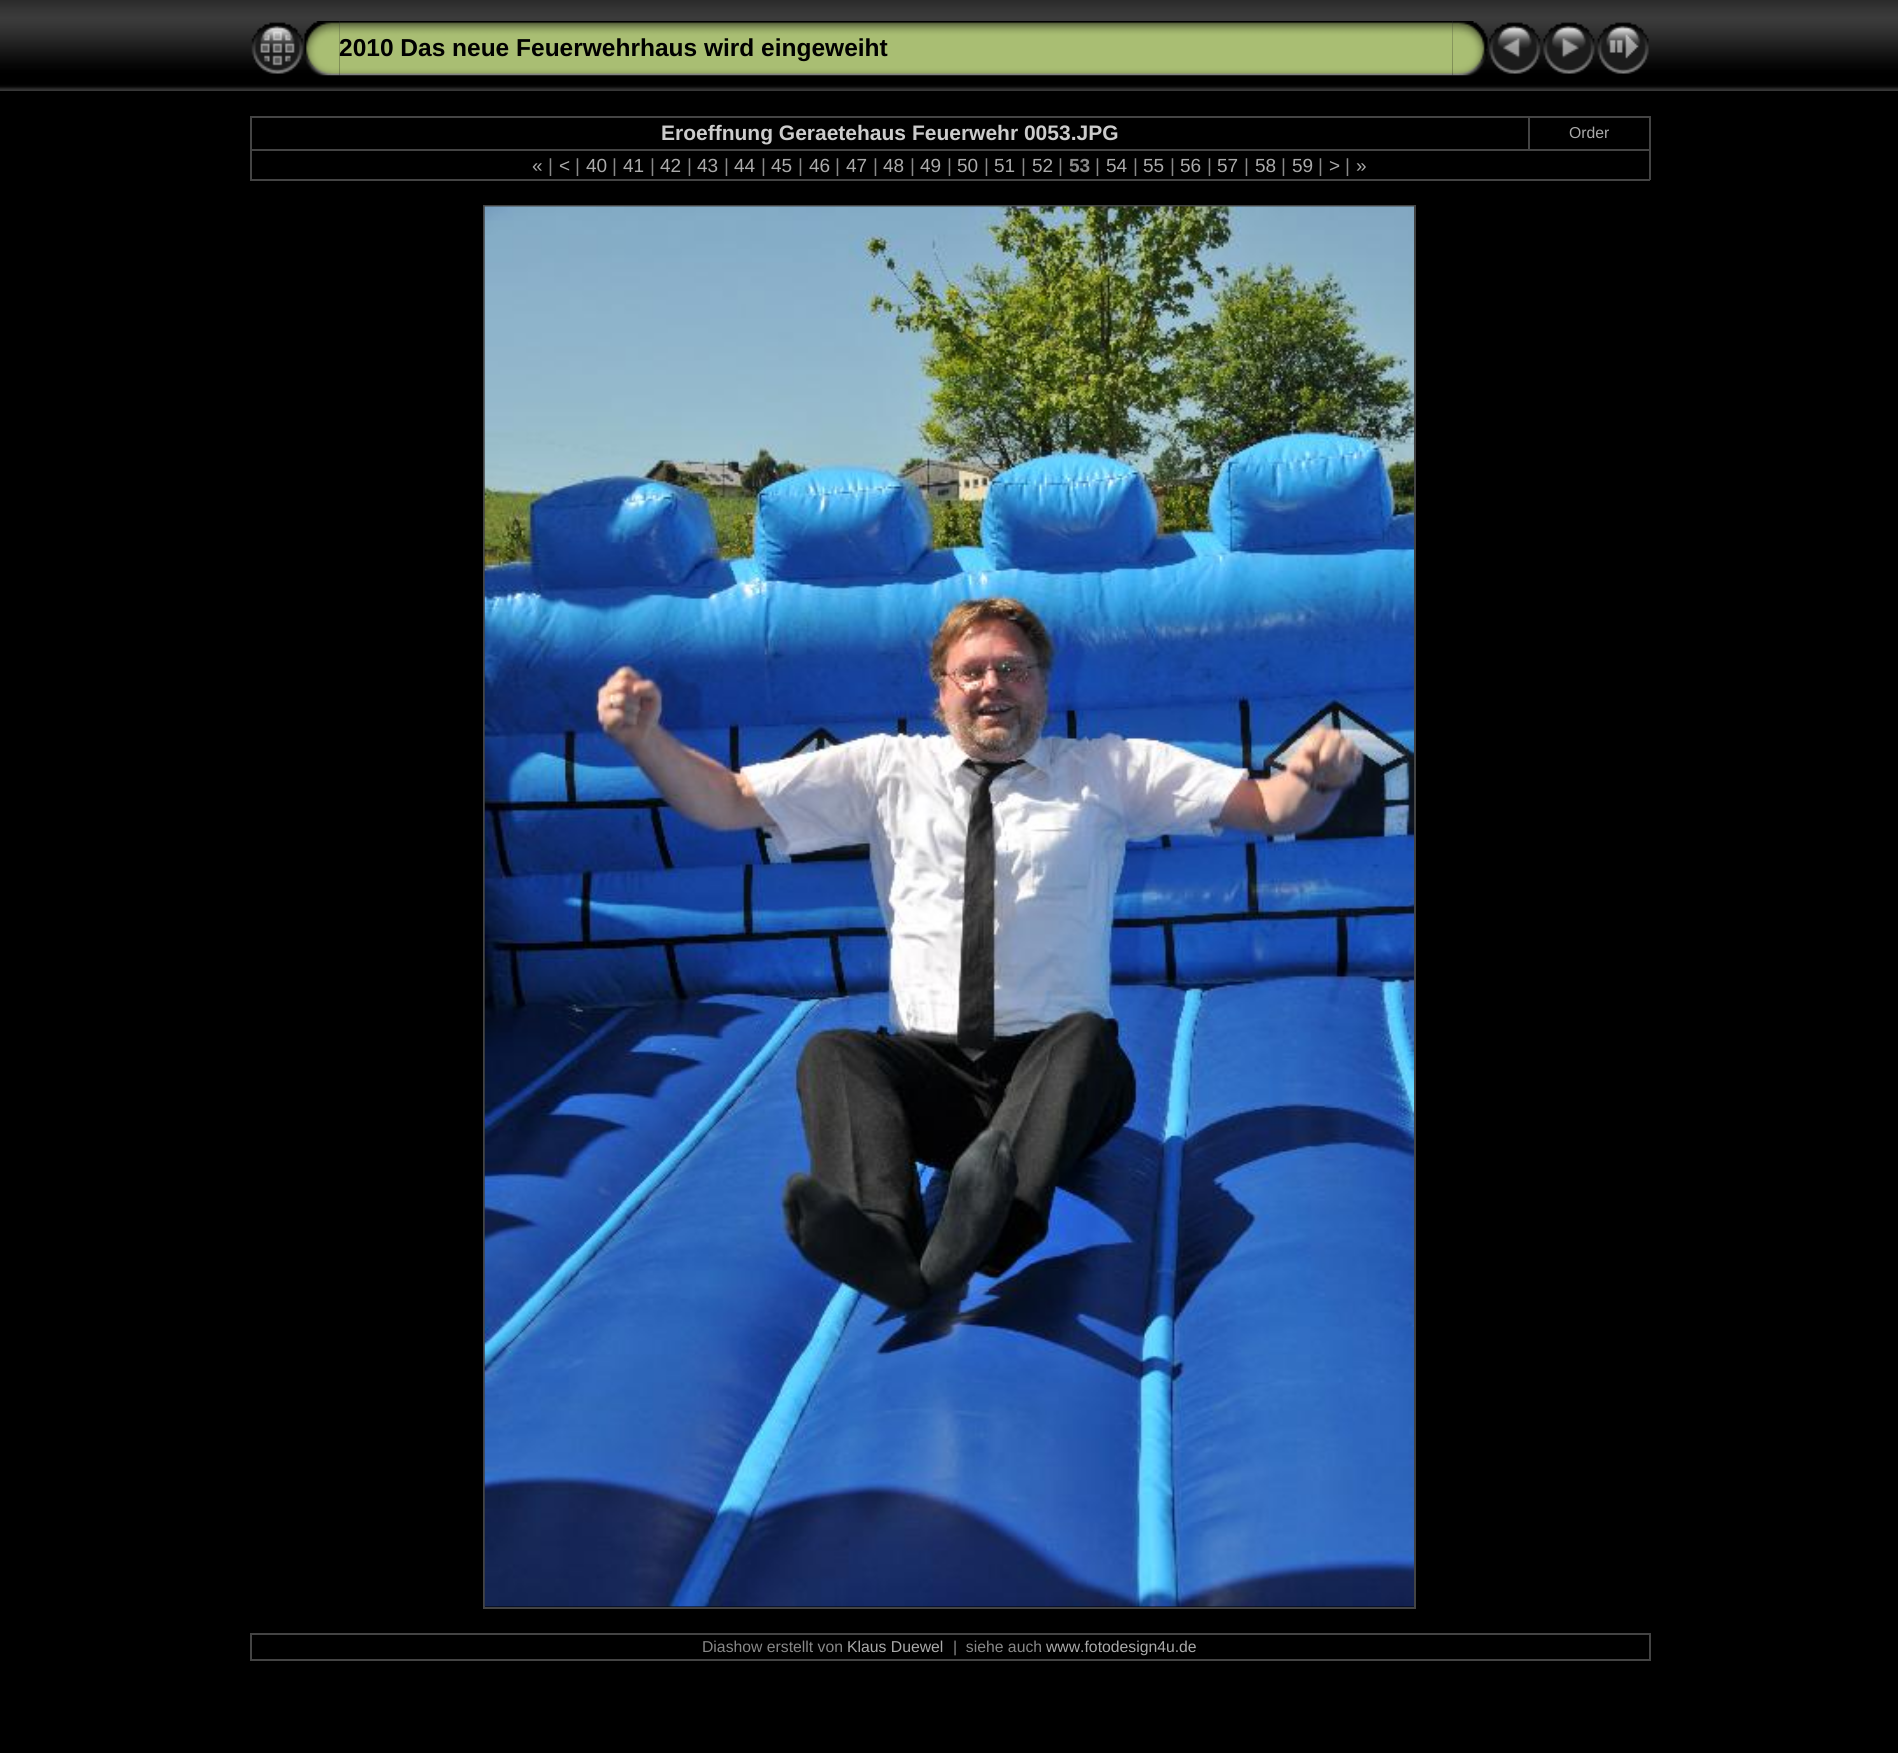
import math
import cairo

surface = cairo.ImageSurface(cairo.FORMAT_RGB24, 1898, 1753)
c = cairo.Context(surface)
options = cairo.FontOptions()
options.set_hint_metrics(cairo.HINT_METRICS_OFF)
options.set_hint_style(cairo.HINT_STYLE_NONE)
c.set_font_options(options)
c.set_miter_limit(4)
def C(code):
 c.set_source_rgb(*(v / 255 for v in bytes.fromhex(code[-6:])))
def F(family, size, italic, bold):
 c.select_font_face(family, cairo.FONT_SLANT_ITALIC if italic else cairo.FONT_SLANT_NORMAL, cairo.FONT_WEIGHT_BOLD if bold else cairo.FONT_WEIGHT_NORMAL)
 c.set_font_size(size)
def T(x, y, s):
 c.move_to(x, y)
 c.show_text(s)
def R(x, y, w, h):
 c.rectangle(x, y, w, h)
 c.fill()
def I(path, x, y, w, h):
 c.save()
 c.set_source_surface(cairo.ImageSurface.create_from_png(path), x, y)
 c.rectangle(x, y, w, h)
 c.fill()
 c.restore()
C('000000')
c.paint()
I('1.png',0,0,1898,91)
I('2.png',251,22,53,52)
I('4.png',339,21,1114,55)
I('3.png',304,21,36,55)
F('Liberation Sans',24.5,0,1)
C('000000')
T(339,56,'2010 Das neue Feuerwehrhaus wird eingeweiht')
I('5.png',1452,21,36,55)
I('6.png',1489,22,52,52)
I('7.png',1543,22,52,52)
I('8.png',1597,22,52,52)
C('444444')
R(250,116,1400,2)
R(1649,116,2,64)
R(250,179,1400,2)
R(250,116,2,64)
F('Liberation Sans',21,0,1)
C('cccccc')
T(661,140,'Eroeffnung Geraetehaus Feuerwehr 0053.JPG')
C('444444')
R(250,149,1400,2)
R(1528,116,2,35)
F('Liberation Sans',15.75,0,0)
C('aaaaaa')
T(1569,138,'Order')
F('Liberation Sans',19,0,0)
T(532,172,'«')
C('888888')
T(548,172,'|')
C('aaaaaa')
T(559,172,'<')
C('888888')
T(575,172,'|')
C('aaaaaa')
T(586,172,'40')
C('888888')
T(612,172,'|')
C('aaaaaa')
T(623,172,'41')
C('888888')
T(650,172,'|')
C('aaaaaa')
T(660,172,'42')
C('888888')
T(687,172,'|')
C('aaaaaa')
T(697,172,'43')
C('888888')
T(724,172,'|')
C('aaaaaa')
T(734,172,'44')
C('888888')
T(761,172,'|')
C('aaaaaa')
T(771,172,'45')
C('888888')
T(798,172,'|')
C('aaaaaa')
T(809,172,'46')
C('888888')
T(835,172,'|')
C('aaaaaa')
T(846,172,'47')
C('888888')
T(873,172,'|')
C('aaaaaa')
T(883,172,'48')
C('888888')
T(910,172,'|')
C('aaaaaa')
T(920,172,'49')
C('888888')
T(947,172,'|')
C('aaaaaa')
T(957,172,'50')
C('888888')
T(984,172,'|')
C('aaaaaa')
T(994,172,'51')
C('888888')
T(1021,172,'|')
C('aaaaaa')
T(1032,172,'52')
C('888888')
T(1058,172,'|')
F('Liberation Sans',19,0,1)
T(1069,172,'53')
F('Liberation Sans',19,0,0)
T(1095,172,'|')
C('aaaaaa')
T(1106,172,'54')
C('888888')
T(1133,172,'|')
C('aaaaaa')
T(1143,172,'55')
C('888888')
T(1170,172,'|')
C('aaaaaa')
T(1180,172,'56')
C('888888')
T(1207,172,'|')
C('aaaaaa')
T(1217,172,'57')
C('888888')
T(1244,172,'|')
C('aaaaaa')
T(1255,172,'58')
C('888888')
T(1281,172,'|')
C('aaaaaa')
T(1292,172,'59')
C('888888')
T(1318,172,'|')
C('aaaaaa')
T(1329,172,'>')
C('888888')
T(1345,172,'|')
C('aaaaaa')
T(1356,172,'»')
C('444444')
R(483,205,933,2)
R(1414,205,2,1403)
R(483,1607,933,2)
R(483,205,2,1403)
I('9.png',484,206,930,1401)
R(250,1633,1400,2)
R(1649,1633,2,28)
R(250,1659,1400,2)
R(250,1633,2,28)
F('Liberation Sans',15.75,0,0)
C('888888')
T(702,1652,'Diashow erstellt von')
C('aaaaaa')
T(847,1652,'Klaus Duewel')
C('888888')
T(953,1652,'|  siehe auch')
C('aaaaaa')
T(1046,1652,'www.fotodesign4u.de')
surface.write_to_png('o.png')
